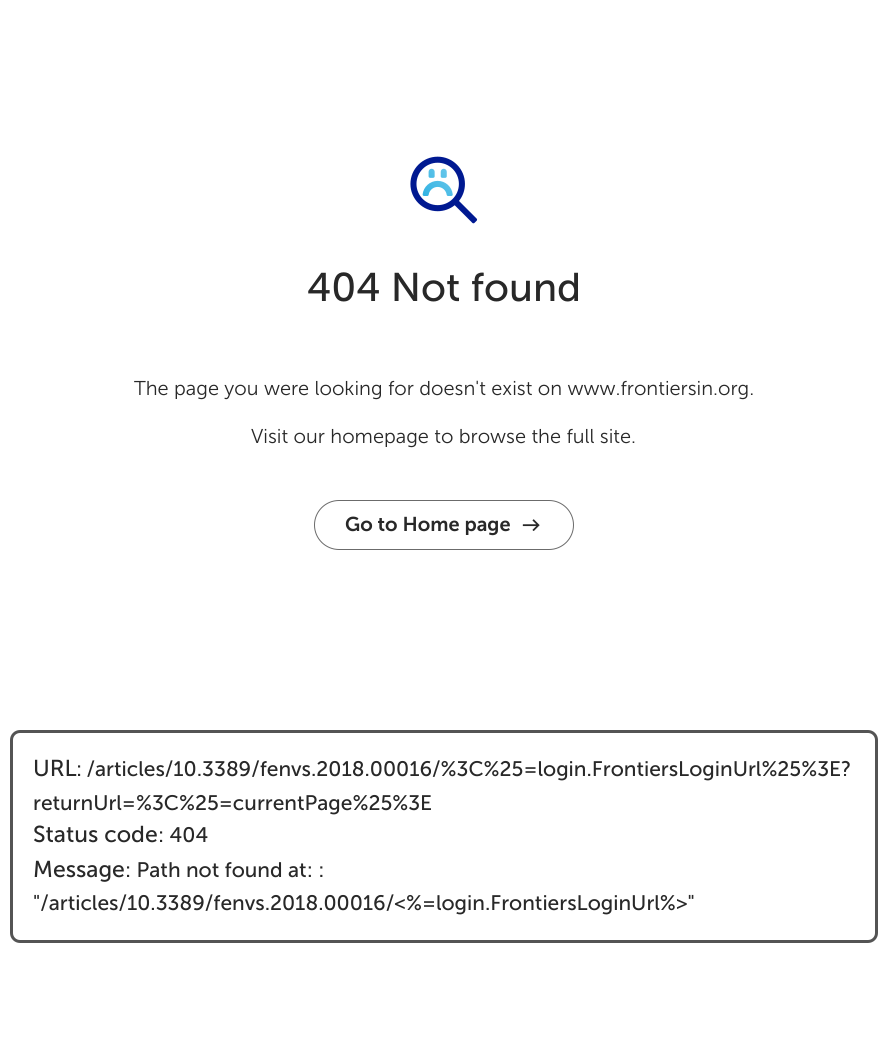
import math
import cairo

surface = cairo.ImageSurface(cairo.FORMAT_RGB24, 887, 1056)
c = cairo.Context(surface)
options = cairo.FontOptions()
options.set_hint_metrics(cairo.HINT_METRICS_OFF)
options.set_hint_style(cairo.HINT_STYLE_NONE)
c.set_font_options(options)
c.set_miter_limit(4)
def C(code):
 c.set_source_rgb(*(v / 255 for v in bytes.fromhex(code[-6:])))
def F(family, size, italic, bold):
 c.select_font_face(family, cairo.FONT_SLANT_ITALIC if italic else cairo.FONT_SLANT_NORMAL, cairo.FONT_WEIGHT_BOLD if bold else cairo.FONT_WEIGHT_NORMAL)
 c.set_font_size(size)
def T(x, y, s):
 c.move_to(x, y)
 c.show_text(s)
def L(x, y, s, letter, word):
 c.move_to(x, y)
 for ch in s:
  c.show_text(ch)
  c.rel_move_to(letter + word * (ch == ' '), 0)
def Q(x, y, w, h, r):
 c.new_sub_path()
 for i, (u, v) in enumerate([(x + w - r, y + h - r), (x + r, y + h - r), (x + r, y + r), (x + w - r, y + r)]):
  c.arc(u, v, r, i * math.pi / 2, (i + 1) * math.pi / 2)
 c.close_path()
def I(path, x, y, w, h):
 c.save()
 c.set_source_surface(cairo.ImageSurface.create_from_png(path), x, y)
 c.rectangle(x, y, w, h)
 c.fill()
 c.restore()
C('ffffff')
c.paint()
I('1.png',410,156,68,68)
F('Museo Sans',40,0,0)
C('282828')
T(307,301,'404 Not found')
F('Museo Sans Light',20,0,0)
T(134,395,'The page you were looking for doesn\'t exist on www.frontiersin.org.')
T(251,443,'Visit our homepage to browse the full site.')
Q(314.5,500.5,259,49,24.5)
C('6b6b6b')
c.set_line_width(1)
c.stroke()
F('Museo Sans SemiBold',20,0,0)
C('282828')
T(345,531,'Go to Home page')
I('2.png',522,519,18,12)
Q(11.5,731.5,865,210,8.5)
C('545454')
c.set_line_width(3)
c.stroke()
F('Museo Sans',23,0,0)
C('282828')
T(33,776,'URL')
F('Museo Sans',21,0,0)
L(76,776,': /articles/10.3389/fenvs.2018.00016/%3C%25=login.FrontiersLoginUrl%25%3E?',0,-1)
T(33,810,'returnUrl=%3C%25=currentPage%25%3E')
F('Museo Sans',23,0,0)
T(33,842,'Status code')
F('Museo Sans',21,0,0)
T(158,842,': 404')
F('Museo Sans',23,0,0)
T(33,877,'Message')
F('Museo Sans',21,0,0)
T(125,877,': Path not found at: :')
T(33,910,'"/articles/10.3389/fenvs.2018.00016/<%=login.FrontiersLoginUrl%>"')
surface.write_to_png('o.png')
